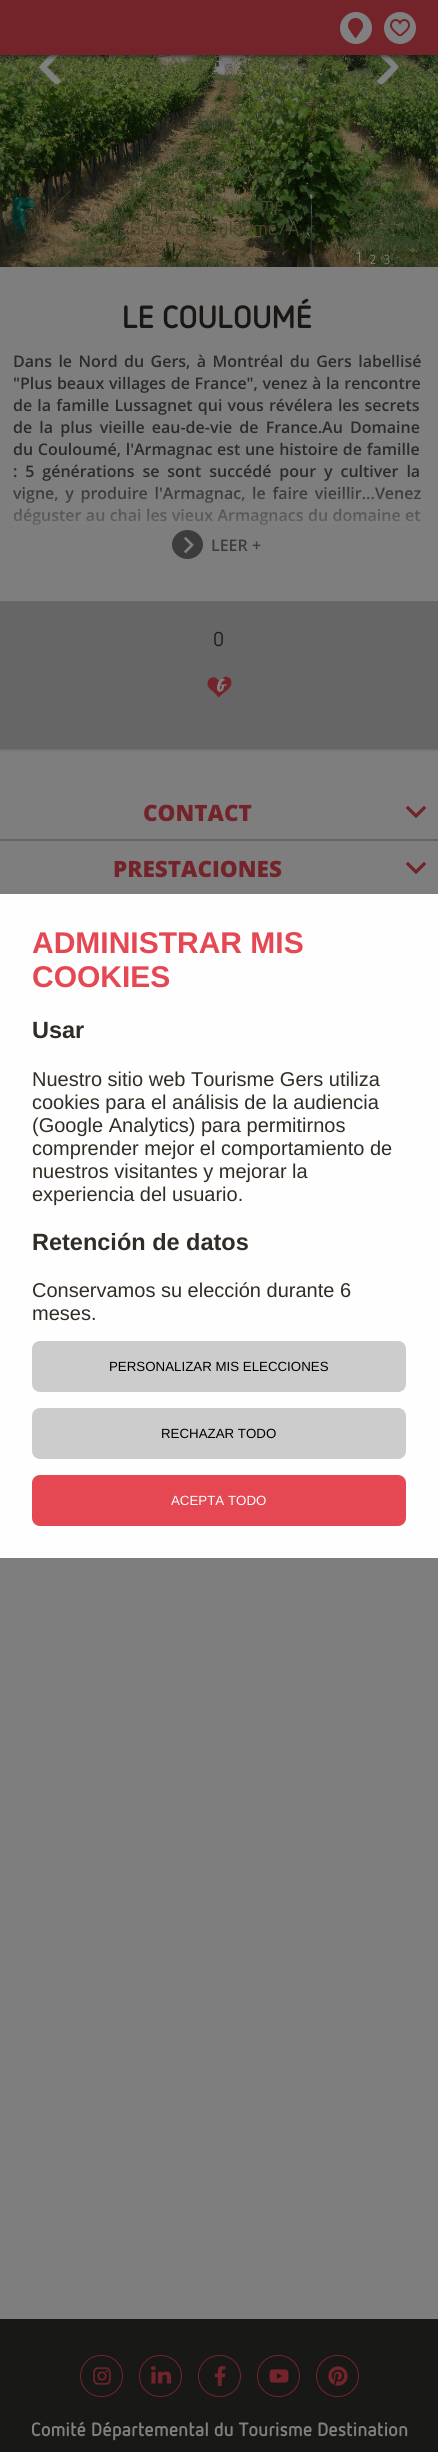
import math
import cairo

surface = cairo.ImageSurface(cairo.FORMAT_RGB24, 438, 2452)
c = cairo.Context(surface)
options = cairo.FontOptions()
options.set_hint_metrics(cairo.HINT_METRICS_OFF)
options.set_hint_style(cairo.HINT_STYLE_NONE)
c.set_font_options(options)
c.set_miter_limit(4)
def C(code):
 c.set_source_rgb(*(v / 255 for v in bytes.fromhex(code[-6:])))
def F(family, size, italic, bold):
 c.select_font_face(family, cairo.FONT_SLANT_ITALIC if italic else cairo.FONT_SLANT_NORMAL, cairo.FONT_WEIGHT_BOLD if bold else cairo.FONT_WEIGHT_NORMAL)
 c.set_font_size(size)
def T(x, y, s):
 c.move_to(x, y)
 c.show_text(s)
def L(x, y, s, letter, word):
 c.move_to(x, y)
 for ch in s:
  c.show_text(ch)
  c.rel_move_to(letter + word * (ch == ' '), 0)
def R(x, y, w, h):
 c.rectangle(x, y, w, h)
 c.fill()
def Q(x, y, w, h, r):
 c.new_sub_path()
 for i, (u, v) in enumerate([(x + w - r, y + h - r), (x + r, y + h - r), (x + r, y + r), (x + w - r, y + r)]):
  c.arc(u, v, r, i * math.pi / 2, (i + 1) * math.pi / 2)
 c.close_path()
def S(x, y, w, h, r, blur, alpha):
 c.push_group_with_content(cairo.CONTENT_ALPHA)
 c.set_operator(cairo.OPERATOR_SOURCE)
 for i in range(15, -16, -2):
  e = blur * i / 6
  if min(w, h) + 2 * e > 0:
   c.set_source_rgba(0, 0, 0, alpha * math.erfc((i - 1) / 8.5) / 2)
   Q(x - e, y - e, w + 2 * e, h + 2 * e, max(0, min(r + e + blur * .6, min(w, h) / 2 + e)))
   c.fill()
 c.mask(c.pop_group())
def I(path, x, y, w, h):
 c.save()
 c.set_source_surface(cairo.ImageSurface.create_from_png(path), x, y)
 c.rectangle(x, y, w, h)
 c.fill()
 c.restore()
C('7e7e7e')
c.paint()
I('3.png',0,55,438,212)
C('808080')
c.set_fill_rule(cairo.FILL_RULE_EVEN_ODD)
c.new_path()
c.move_to(73,69)
c.line_to(59,83.5)
c.curve_to(57.5,84.5,56,84.5,54.5,83.5)
c.line_to(40.5,69)
c.curve_to(39.5,68,39.5,66,40.5,65)
c.line_to(54.5,50.5)
c.curve_to(56,49.5,57.5,49.5,59,50.5)
c.line_to(73,65)
c.curve_to(74,66,74,68,73,69)
c.close_path()
c.move_to(73,69)
c.line_to(61,81)
c.line_to(47,67)
c.line_to(61,53)
c.line_to(73,65)
c.curve_to(74,66,74,68,73,69)
c.close_path()
c.fill()
c.new_path()
c.move_to(365,65)
c.line_to(379,50.5)
c.curve_to(380.5,49.5,382,49.5,383.5,50.5)
c.line_to(397.5,65)
c.curve_to(398.5,66,398.5,68,397.5,69)
c.line_to(383.5,83.5)
c.curve_to(382,84.5,380.5,84.5,379,83.5)
c.line_to(365,69)
c.curve_to(364,68,364,66,365,65)
c.close_path()
c.move_to(365,65)
c.line_to(377,53)
c.line_to(391,67)
c.line_to(377,81)
c.line_to(365,69)
c.curve_to(364,68,364,66,365,65)
c.close_path()
c.fill()
C('1a1a1a')
S(0,2,438,55,0,2,.6)
C('73242a')
R(0,0,438,55)
C('808080')
c.arc(356,28,16,0,2 * math.pi)
c.fill()
I('1.png',348,18,15,20)
c.arc(400,28,16,0,2 * math.pi)
c.fill()
I('2.png',390,19,20,17)
F('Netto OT',20,0,0)
C('424729')
T(130,211,'Collection Tourisme')
C('48452c')
T(130,235,'Gers/Le Couloumé/A.')
F('Netto OT',16,0,0)
C('808080')
T(356,263,'1')
F('Netto OT',13,0,0)
T(370,264,'2')
T(384,264,'3')
F('Netto OT',32,0,1)
C('191613')
T(122,328,'LE COULOUMÉ')
F('Open Sans SemiBold',16,0,0)
C('2b2b2b')
L(13,367,'Dans le Nord du Gers, à Montréal du Gers labellisé',0,2.25)
L(13,389,'"Plus beaux villages de France", venez à la rencontre',0,.5)
L(13,411,'de la famille Lussagnet qui vous révélera les secrets',0,1)
L(13,433,'de la plus vieille eau-de-vie de France.Au Domaine',0,3)
L(13,455,'du Couloumé, l\'Armagnac est une histoire de famille',0,.5)
L(13,477,': 5 générations se sont succédé pour y cultiver la',0,3.75)
L(13,499,'vigne, y produire l\'Armagnac, le faire vieillir...Venez',0,2.5)
L(13,521,'déguster au chai les vieux Armagnacs du domaine et',0,.25)
gradient = cairo.LinearGradient(217,480,217,569)
gradient.add_color_stop_rgba(0,0.502,0.502,0.502,0)
gradient.add_color_stop_rgba(.75,0.502,0.502,0.502,1)
gradient.add_color_stop_rgba(1,0.502,0.502,0.502,1)
c.set_source(gradient)
R(13,487,407,38)
C('3c3c3c')
c.new_path()
c.move_to(187.5,530)
c.curve_to(196,530,203,536.5,203,544.5)
c.curve_to(203,552.5,196,559,187.5,559)
c.curve_to(179,559,172,552.5,172,544.5)
c.curve_to(172,536.5,179,530,187.5,530)
c.close_path()
c.fill()
I('4.png',184,536,10,18)
T(211,551,'LEER +')
c.save()
c.set_fill_rule(cairo.FILL_RULE_WINDING)
c.rectangle(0,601,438,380)
c.clip()
C('000000')
S(0,601,438,147,0,2,.5)
c.restore()
C('666666')
R(0,601,438,147)
F('Netto OT',20,0,0)
C('191613')
T(213,646,'0')
I('5.png',207,676,25,22)
C('666666')
R(0,839,438,2)
F('Open Sans ExtraBold',22.5,0,0)
C('73242a')
T(143,821,'CONTACT')
I('6.png',406,806,20,12)
T(113,877,'PRESTACIONES')
I('6.png',406,862,20,12)
C('fefefe')
R(0,894,438,664)
F('Liberation Sans',30,0,1)
C('e54753')
T(32,953,'ADMINISTRAR MIS')
T(32,987,'COOKIES')
F('Liberation Sans',23.5,0,1)
C('312c25')
T(32,1038,'Usar')
F('Liberation Sans',20,0,0)
T(32,1086,'Nuestro sitio web Tourisme Gers utiliza')
T(32,1109,'cookies para el análisis de la audiencia')
T(32,1132,'(Google Analytics) para permitirnos')
T(32,1155,'comprender mejor el comportamiento de')
T(32,1178,'nuestros visitantes y mejorar la')
T(32,1201,'experiencia del usuario.')
F('Liberation Sans',23.5,0,1)
T(32,1250,'Retención de datos')
F('Liberation Sans',20,0,0)
T(32,1297,'Conservamos su elección durante 6')
T(32,1320,'meses.')
C('cccccc')
Q(32,1341,374,51,8)
c.fill()
F('Liberation Sans',13.3,0,0)
C('000000')
T(109,1371,'PERSONALIZAR MIS ELECCIONES')
C('cccccc')
Q(32,1408,374,51,8)
c.fill()
C('000000')
T(161,1438,'RECHAZAR TODO')
C('e54753')
Q(33,1476,372,49,7)
c.fill_preserve()
c.stroke()
C('fefefe')
T(171,1505,'ACEPTA TODO')
C('181816')
R(0,2319,438,133)
Q(80.5,2355.5,42,41,20.5)
C('73242a')
c.set_line_width(1)
c.stroke()
I('7.png',93,2367,18,18)
Q(139.5,2355.5,42,41,20.5)
c.stroke()
I('8.png',151,2366,20,18)
Q(198.5,2355.5,42,41,20.5)
c.stroke()
I('9.png',214,2366,12,20)
Q(257.5,2355.5,42,41,20.5)
c.stroke()
I('10.png',269,2369,20,14)
Q(316.5,2355.5,42,41,20.5)
c.stroke()
I('11.png',328,2366,20,20)
F('Netto OT',19.25,0,1)
C('808080')
T(31,2436,'Comité Départemental du Tourisme Destination')
surface.write_to_png('o.png')
